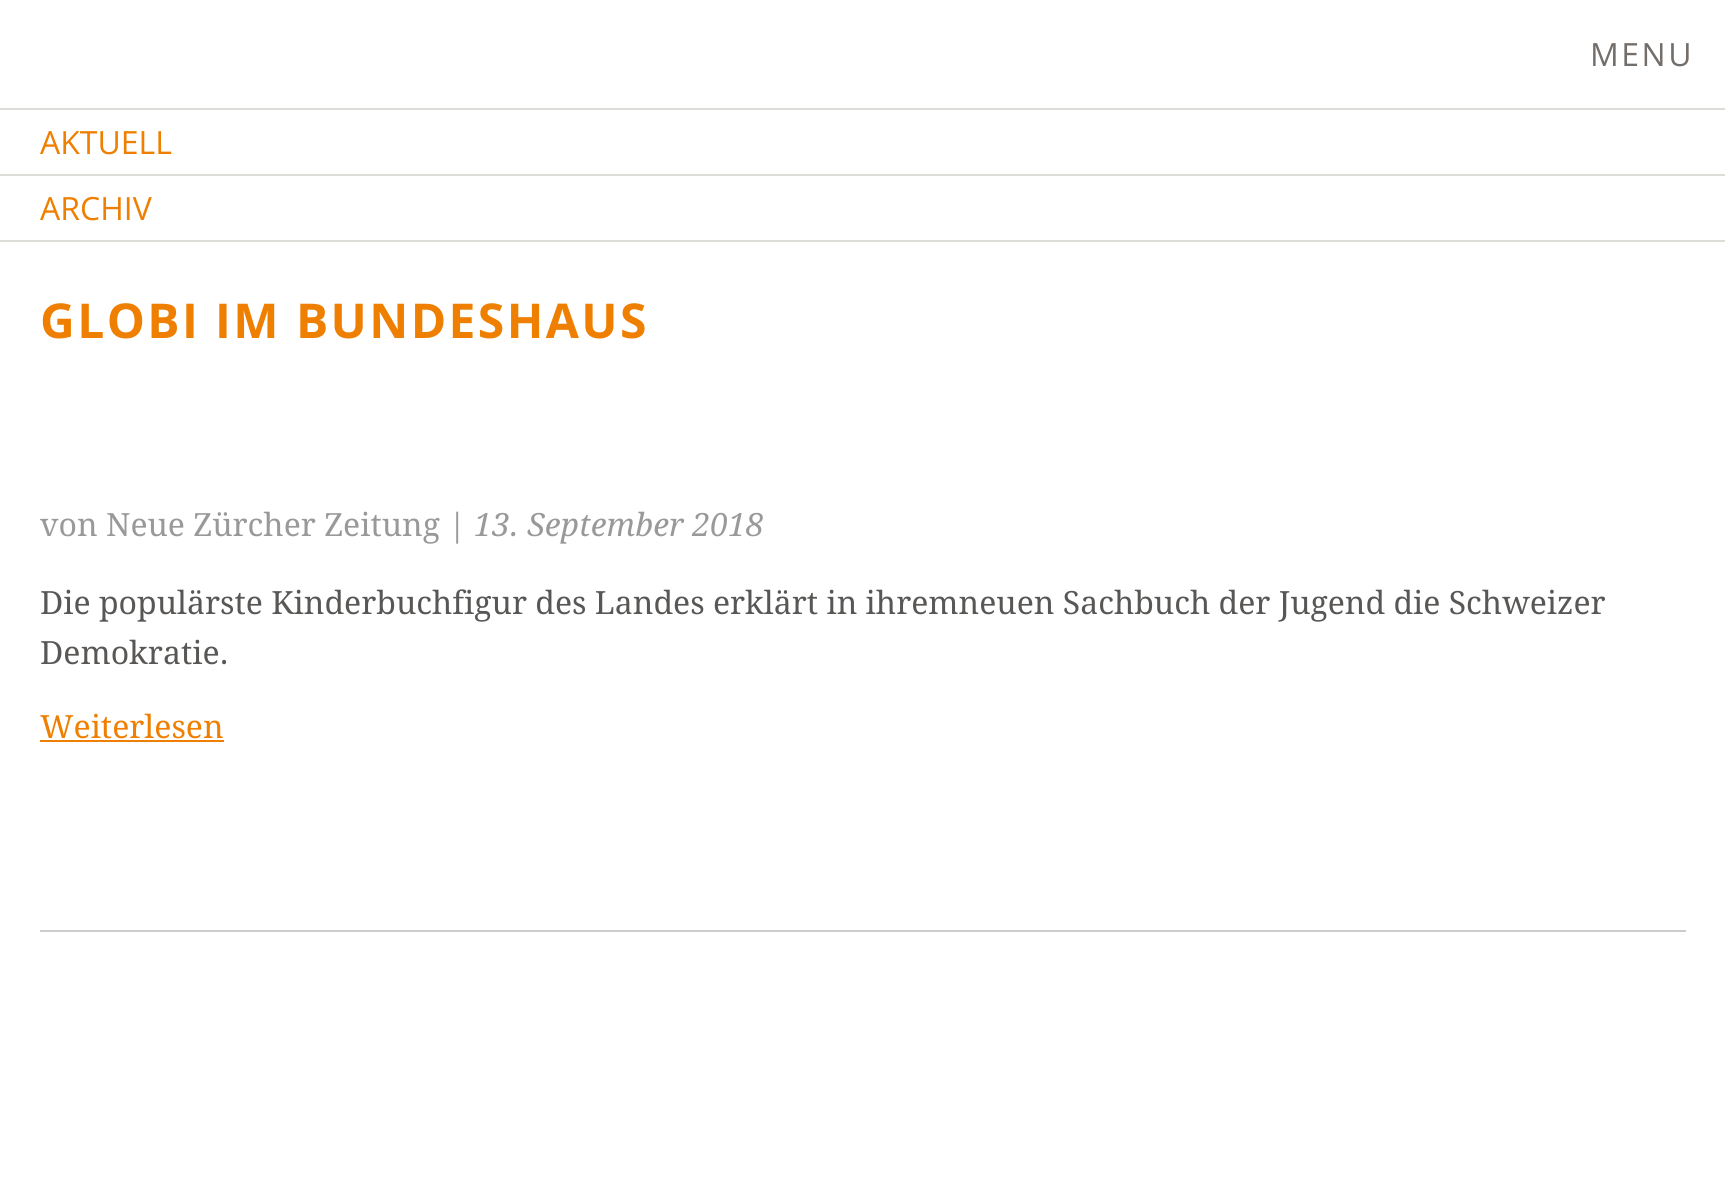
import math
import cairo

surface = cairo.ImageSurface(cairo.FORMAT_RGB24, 1725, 1190)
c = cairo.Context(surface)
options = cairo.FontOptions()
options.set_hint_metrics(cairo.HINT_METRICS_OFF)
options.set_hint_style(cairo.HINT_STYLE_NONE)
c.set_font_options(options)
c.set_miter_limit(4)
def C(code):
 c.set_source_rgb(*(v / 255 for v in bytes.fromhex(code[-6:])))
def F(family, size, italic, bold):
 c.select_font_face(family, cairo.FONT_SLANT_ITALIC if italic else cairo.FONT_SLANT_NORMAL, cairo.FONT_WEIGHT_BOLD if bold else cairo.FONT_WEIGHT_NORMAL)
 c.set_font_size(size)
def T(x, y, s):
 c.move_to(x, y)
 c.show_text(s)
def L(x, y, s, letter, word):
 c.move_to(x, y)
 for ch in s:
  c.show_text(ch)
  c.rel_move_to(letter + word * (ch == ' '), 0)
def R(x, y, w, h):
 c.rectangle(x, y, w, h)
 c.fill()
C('ffffff')
c.paint()
C('dedcd9')
R(0,108,1725,2)
F('Open Sans',32,0,0)
C('736e6a')
L(1590,66,'MENU',2.5,0)
C('dedcd9')
R(0,240,1725,2)
R(0,174,1725,2)
C('ef7f01')
T(40,154,'AKTUELL')
T(40,220,'ARCHIV')
F('Open Sans',48,0,1)
L(40,338,'GLOBI IM BUNDESHAUS',2.4,0)
F('Droid Serif',32,0,0)
C('999999')
T(40,536,'von Neue Zürcher Zeitung |')
F('Droid Serif',32,1,0)
T(474,536,'13. September 2018')
C('cccccc')
R(40,930,1646,2)
F('Droid Serif',32,0,0)
C('595755')
T(40,614,'Die populärste Kinderbuchfigur des Landes erklärt in ihremneuen Sachbuch der Jugend die Schweizer')
T(40,664,'Demokratie.')
C('ef7f01')
T(40,738,'Weiterlesen')
R(40,740,184,2)
surface.write_to_png('o.png')
